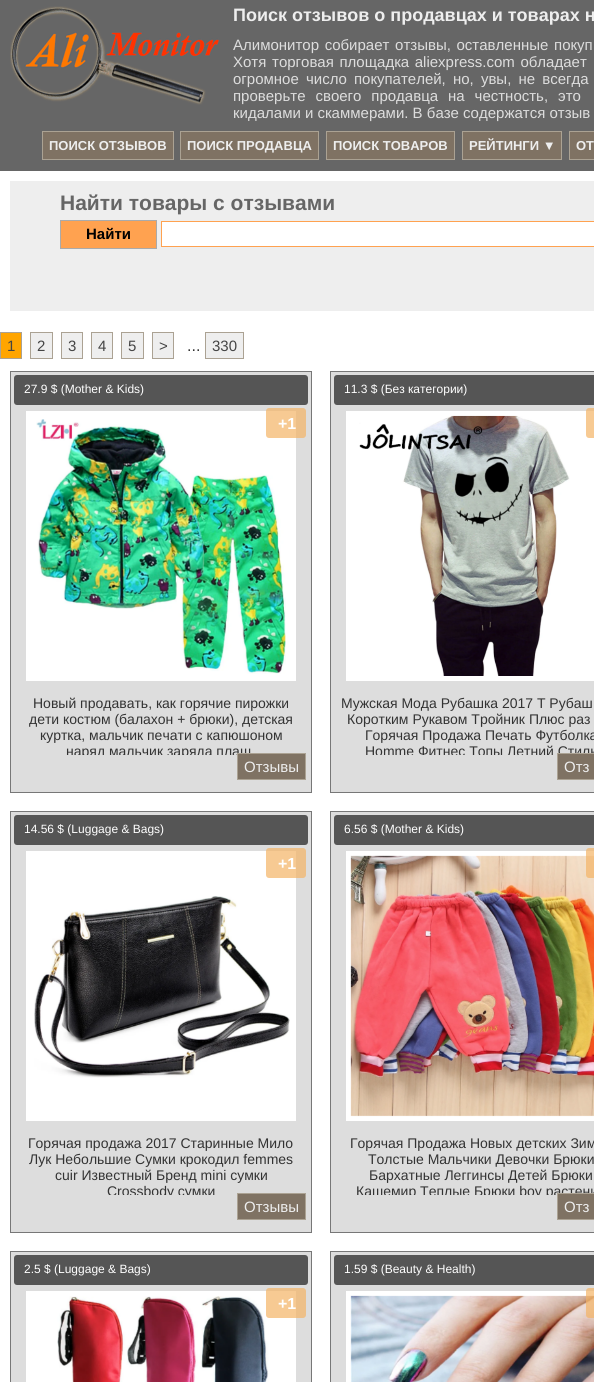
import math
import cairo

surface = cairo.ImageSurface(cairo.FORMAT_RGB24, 594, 1382)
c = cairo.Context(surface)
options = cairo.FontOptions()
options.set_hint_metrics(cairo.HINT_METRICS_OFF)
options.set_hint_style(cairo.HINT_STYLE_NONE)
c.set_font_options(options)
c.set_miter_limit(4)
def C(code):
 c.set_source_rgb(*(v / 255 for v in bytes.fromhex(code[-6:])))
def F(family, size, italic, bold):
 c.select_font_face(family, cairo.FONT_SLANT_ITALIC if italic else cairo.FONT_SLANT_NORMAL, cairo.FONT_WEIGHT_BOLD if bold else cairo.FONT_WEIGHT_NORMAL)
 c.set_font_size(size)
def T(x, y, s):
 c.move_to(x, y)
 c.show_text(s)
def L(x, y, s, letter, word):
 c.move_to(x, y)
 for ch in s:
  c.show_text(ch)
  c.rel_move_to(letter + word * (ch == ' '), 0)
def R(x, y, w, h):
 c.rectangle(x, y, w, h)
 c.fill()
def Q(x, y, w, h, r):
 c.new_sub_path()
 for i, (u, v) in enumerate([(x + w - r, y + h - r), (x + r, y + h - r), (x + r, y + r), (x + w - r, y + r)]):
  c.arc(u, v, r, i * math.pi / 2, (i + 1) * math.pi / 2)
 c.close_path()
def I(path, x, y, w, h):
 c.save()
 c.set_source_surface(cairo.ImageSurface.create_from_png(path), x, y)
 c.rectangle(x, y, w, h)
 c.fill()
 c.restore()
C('ffffff')
c.paint()
C('666666')
R(0,0,594,171)
I('1.png',10,6,210,99)
F('Liberation Sans',18,0,1)
C('eeeeee')
T(233,21,'Поиск отзывов о продавцах и товарах н')
F('Liberation Sans',15,0,0)
C('dddddd')
L(233,50,'Алимонитор собирает отзывы, оставленные покуп',0,1.5)
L(233,67,'Хотя торговая площадка aliexpress.com обладает',0,1.5)
L(233,84,'огромное число покупателей, но, увы, не всегда',0,3)
L(233,101,'проверьте своего продавца на честность, это',0,5.75)
T(233,118,'кидалами и скаммерами. В базе содержатся отзыв')
C('7f7263')
c.rectangle(42.5,131.5,131,28)
c.fill_preserve()
C('aba293')
c.set_line_width(1)
c.stroke()
F('Liberation Sans',13,0,1)
C('eeeeee')
T(49,150,'ПОИСК ОТЗЫВОВ')
C('7f7263')
c.rectangle(180.5,131.5,138,28)
c.fill_preserve()
C('aba293')
c.stroke()
C('eeeeee')
T(187,150,'ПОИСК ПРОДАВЦА')
C('7f7263')
c.rectangle(326.5,131.5,128,28)
c.fill_preserve()
C('aba293')
c.stroke()
C('eeeeee')
T(333,150,'ПОИСК ТОВАРОВ')
C('7f7263')
c.rectangle(462.5,131.5,99,28)
c.fill_preserve()
C('aba293')
c.stroke()
C('eeeeee')
T(469,150,'РЕЙТИНГИ ▼')
C('7f7263')
c.rectangle(569.5,131.5,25,28)
c.fill_preserve()
C('aba293')
c.stroke()
C('eeeeee')
T(576,150,'ОТ')
R(10,181,584,130)
F('Liberation Sans',21,0,1)
C('666666')
T(60,210,'Найти товары с отзывами')
C('ffa250')
c.rectangle(60.5,220.5,96,28)
c.fill_preserve()
C('aaaaaa')
c.stroke()
F('Liberation Sans',15,0,1)
C('000000')
T(86,239,'Найти')
C('ffffff')
c.rectangle(161.5,221.5,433,25)
c.fill_preserve()
C('ffa250')
c.stroke()
C('ffa500')
c.rectangle(.5,332.5,21,26)
c.fill_preserve()
C('aba293')
c.stroke()
F('Liberation Sans',15,0,0)
C('444444')
T(7,351,'1')
C('eeeeee')
c.rectangle(30.5,332.5,22,26)
c.fill_preserve()
C('aba293')
c.stroke()
C('444444')
T(37,351,'2')
C('eeeeee')
c.rectangle(61.5,332.5,21,26)
c.fill_preserve()
C('aba293')
c.stroke()
C('444444')
T(68,351,'3')
C('eeeeee')
c.rectangle(91.5,332.5,21,26)
c.fill_preserve()
C('aba293')
c.stroke()
C('444444')
T(98,351,'4')
C('eeeeee')
c.rectangle(121.5,332.5,22,26)
c.fill_preserve()
C('aba293')
c.stroke()
C('444444')
T(128,351,'5')
C('eeeeee')
c.rectangle(152.5,332.5,21,26)
c.fill_preserve()
C('aba293')
c.stroke()
C('444444')
T(159,351,'>')
F('Liberation Sans',16,0,0)
C('333333')
T(187,351,'...')
C('eeeeee')
c.rectangle(205.5,332.5,38,26)
c.fill_preserve()
C('aba293')
c.stroke()
F('Liberation Sans',15,0,0)
C('444444')
T(212,351,'330')
C('dddddd')
c.rectangle(10.5,371.5,301,421)
c.fill_preserve()
C('777777')
c.stroke()
C('555555')
Q(14,375,294,30,3)
c.fill()
F('Liberation Sans',12,0,0)
C('ffffff')
T(24,393,'27.9 $ (Mother & Kids)')
R(26,411,270,270)
I('2.png',36,419,250,255)
c.set_source_rgba(0.957,0.706,0.4,0.7)
Q(266,408,40,30,3)
c.fill()
F('Liberation Sans',16,0,1)
C('ffffff')
T(278,429,'+1')
F('Liberation Sans',14,0,0)
C('333333')
T(33,708,'Новый продавать, как горячие пирожки')
T(29,724,'дети костюм (балахон + брюки), детская')
T(40,740,'куртка, мальчик печати с капюшоном')
c.save()
c.rectangle(21,695,280,60)
c.clip()
T(66,756,'наряд мальчик заряда плащ')
c.restore()
C('7f7263')
c.rectangle(237.5,753.5,68,26)
c.fill_preserve()
C('aba293')
c.stroke()
F('Liberation Sans',15,0,0)
C('eeeeee')
T(244,772,'Отзывы')
C('dddddd')
c.rectangle(330.5,371.5,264,421)
c.fill_preserve()
C('777777')
c.stroke()
C('555555')
Q(334,375,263,30,3)
c.fill()
F('Liberation Sans',12,0,0)
C('ffffff')
T(344,393,'11.3 $ (Без категории)')
R(346,411,248,270)
c.set_source_rgba(0.957,0.706,0.4,0.7)
Q(586,408,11,30,3)
c.fill()
I('3.png',359,415,211,261)
F('Liberation Sans',14,0,0)
C('333333')
T(341,708,'Мужская Мода Рубашка 2017 Т Рубаш')
T(347,724,'Коротким Рукавом Тройник Плюс раз')
T(365,740,'Горячая Продажа Печать Футболка')
c.save()
c.rectangle(341,695,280,60)
c.clip()
T(365,756,'Homme Фитнес Топы Летний Стиль')
c.restore()
C('7f7263')
c.rectangle(557.5,753.5,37,26)
c.fill_preserve()
C('aba293')
c.stroke()
F('Liberation Sans',15,0,0)
C('eeeeee')
T(564,772,'Отз')
C('dddddd')
c.rectangle(10.5,811.5,301,421)
c.fill_preserve()
C('777777')
c.stroke()
C('555555')
Q(14,815,294,30,3)
c.fill()
F('Liberation Sans',12,0,0)
C('ffffff')
T(24,833,'14.56 $ (Luggage & Bags)')
R(26,851,270,270)
c.set_source_rgba(0.957,0.706,0.4,0.7)
Q(266,848,40,30,3)
c.fill()
F('Liberation Sans',16,0,1)
C('ffffff')
T(278,869,'+1')
I('4.png',34,896,256,182)
F('Liberation Sans',14,0,0)
C('333333')
T(28,1148,'Горячая продажа 2017 Старинные Мило')
T(29,1164,'Лук Небольшие Сумки крокодил femmes')
T(55,1180,'cuir Известный Бренд mini сумки')
c.save()
c.rectangle(21,1135,280,60)
c.clip()
T(107,1196,'Crossbody сумки')
c.restore()
C('7f7263')
c.rectangle(237.5,1193.5,68,26)
c.fill_preserve()
C('aba293')
c.stroke()
F('Liberation Sans',15,0,0)
C('eeeeee')
T(244,1212,'Отзывы')
C('dddddd')
c.rectangle(330.5,811.5,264,421)
c.fill_preserve()
C('777777')
c.stroke()
C('555555')
Q(334,815,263,30,3)
c.fill()
F('Liberation Sans',12,0,0)
C('ffffff')
T(344,833,'6.56 $ (Mother & Kids)')
R(346,851,248,270)
I('5.png',350,855,244,262)
c.set_source_rgba(0.957,0.706,0.4,0.7)
Q(586,848,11,30,3)
c.fill()
F('Liberation Sans',14,0,0)
C('333333')
T(350,1148,'Горячая Продажа Новых детских Зим')
T(368,1164,'Толстые Мальчики Девочки Брюки')
T(369,1180,'Бархатные Леггинсы Детей Брюки')
c.save()
c.rectangle(341,1135,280,60)
c.clip()
T(356,1196,'Кашемир Теплые Брюки boy растени')
c.restore()
C('7f7263')
c.rectangle(557.5,1193.5,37,26)
c.fill_preserve()
C('aba293')
c.stroke()
F('Liberation Sans',15,0,0)
C('eeeeee')
T(564,1212,'Отз')
C('dddddd')
c.rectangle(10.5,1251.5,301,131)
c.fill_preserve()
C('777777')
c.stroke()
C('555555')
Q(14,1255,294,30,3)
c.fill()
F('Liberation Sans',12,0,0)
C('ffffff')
T(24,1273,'2.5 $ (Luggage & Bags)')
R(26,1291,270,91)
I('6.png',57,1296,212,86)
c.set_source_rgba(0.957,0.706,0.4,0.7)
Q(266,1288,40,30,3)
c.fill()
F('Liberation Sans',16,0,1)
C('ffffff')
T(278,1309,'+1')
C('dddddd')
c.rectangle(330.5,1251.5,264,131)
c.fill_preserve()
C('777777')
c.stroke()
C('555555')
Q(334,1255,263,30,3)
c.fill()
F('Liberation Sans',12,0,0)
C('ffffff')
T(344,1273,'1.59 $ (Beauty & Health)')
R(346,1291,248,91)
I('7.png',350,1295,244,87)
c.set_source_rgba(0.957,0.706,0.4,0.7)
Q(586,1288,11,30,3)
c.fill()
surface.write_to_png('o.png')
